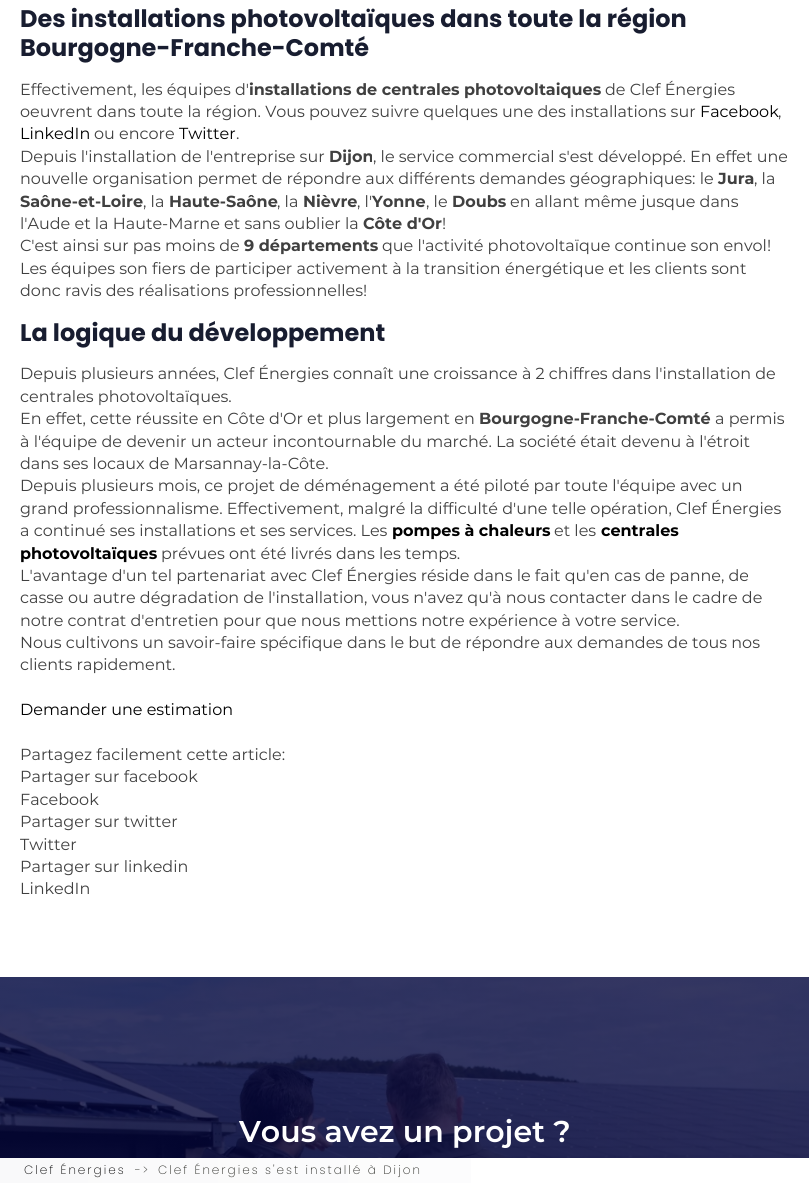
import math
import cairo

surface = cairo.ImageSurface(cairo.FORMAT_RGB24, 809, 1183)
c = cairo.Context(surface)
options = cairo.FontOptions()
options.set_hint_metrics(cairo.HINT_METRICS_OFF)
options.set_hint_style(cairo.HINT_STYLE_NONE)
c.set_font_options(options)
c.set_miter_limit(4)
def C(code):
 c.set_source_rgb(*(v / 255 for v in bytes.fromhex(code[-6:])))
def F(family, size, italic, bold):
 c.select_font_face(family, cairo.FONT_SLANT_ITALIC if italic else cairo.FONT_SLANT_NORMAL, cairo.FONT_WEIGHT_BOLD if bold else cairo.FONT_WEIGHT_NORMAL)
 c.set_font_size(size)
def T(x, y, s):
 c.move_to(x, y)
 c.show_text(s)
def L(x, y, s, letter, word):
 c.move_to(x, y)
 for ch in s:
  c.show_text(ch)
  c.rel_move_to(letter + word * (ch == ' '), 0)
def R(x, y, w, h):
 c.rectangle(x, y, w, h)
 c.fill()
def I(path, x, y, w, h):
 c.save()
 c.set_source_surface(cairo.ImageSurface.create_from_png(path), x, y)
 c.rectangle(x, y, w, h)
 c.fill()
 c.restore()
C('ffffff')
c.paint()
F('Poppins',24,0,1)
C('181d30')
T(20,27,'Des installations photovoltaïques dans toute la région')
T(20,56,'Bourgogne-Franche-Comté')
F('Montserrat',16,0,0)
C('404040')
T(20,95,'Effectivement, les équipes d\'')
F('Montserrat',16,0,1)
T(249,95,'installations de centrales photovoltaiques')
F('Montserrat',16,0,0)
T(605,95,'de Clef Énergies')
T(20,117,'oeuvrent dans toute la région. Vous pouvez suivre quelques une des installations sur')
C('000000')
T(700,117,'Facebook')
C('404040')
T(778,117,',')
C('000000')
T(20,139,'LinkedIn')
C('404040')
T(94,139,'ou encore')
C('000000')
T(179,139,'Twitter')
C('404040')
T(236,139,'.')
T(20,162,'Depuis l\'installation de l\'entreprise sur')
F('Montserrat',16,0,1)
T(329,162,'Dijon')
F('Montserrat',16,0,0)
T(373,162,', le service commercial s\'est développé. En effet une')
T(20,184,'nouvelle organisation permet de répondre aux différents demandes géographiques: le')
F('Montserrat',16,0,1)
T(718,184,'Jura')
F('Montserrat',16,0,0)
T(754,184,', la')
F('Montserrat',16,0,1)
T(20,207,'Saône-et-Loire')
F('Montserrat',16,0,0)
T(143,207,', la')
F('Montserrat',16,0,1)
T(169,207,'Haute-Saône')
F('Montserrat',16,0,0)
T(277,207,', la')
F('Montserrat',16,0,1)
T(303,207,'Nièvre')
F('Montserrat',16,0,0)
T(357,207,', l\'')
F('Montserrat',16,0,1)
T(372,207,'Yonne')
F('Montserrat',16,0,0)
T(426,207,', le')
F('Montserrat',16,0,1)
T(452,207,'Doubs')
F('Montserrat',16,0,0)
T(510,207,'en allant même jusque dans')
T(20,229,'l\'Aude et la Haute-Marne et sans oublier la')
F('Montserrat',16,0,1)
T(363,229,'Côte d\'Or')
F('Montserrat',16,0,0)
T(442,229,'!')
T(20,251,'C\'est ainsi sur pas moins de')
F('Montserrat',16,0,1)
T(244,251,'9 départements')
F('Montserrat',16,0,0)
T(382,251,'que l\'activité photovoltaïque continue son envol!')
T(20,274,'Les équipes son fiers de participer activement à la transition énergétique et les clients sont')
T(20,296,'donc ravis des réalisations professionnelles!')
F('Poppins',24,0,1)
C('181d30')
T(20,341,'La logique du développement')
F('Montserrat',16,0,0)
C('404040')
T(20,379,'Depuis plusieurs années, Clef Énergies connaît une croissance à 2 chiffres dans l\'installation de')
T(20,402,'centrales photovoltaïques.')
T(20,424,'En effet, cette réussite en Côte d\'Or et plus largement en')
F('Montserrat',16,0,1)
T(479,424,'Bourgogne-Franche-Comté')
F('Montserrat',16,0,0)
T(715,424,'a permis')
T(20,447,'à l\'équipe de devenir un acteur incontournable du marché. La société était devenu à l\'étroit')
T(20,469,'dans ses locaux de Marsannay-la-Côte.')
T(20,491,'Depuis plusieurs mois, ce projet de déménagement a été piloté par toute l\'équipe avec un')
T(20,514,'grand professionnalisme. Effectivement, malgré la difficulté d\'une telle opération, Clef Énergies')
T(20,536,'a continué ses installations et ses services. Les')
F('Montserrat',16,0,1)
C('000000')
T(392,536,'pompes à chaleurs')
F('Montserrat',16,0,0)
C('404040')
T(554,536,'et les')
F('Montserrat',16,0,1)
C('000000')
T(601,536,'centrales')
T(20,559,'photovoltaïques')
F('Montserrat',16,0,0)
C('404040')
T(161,559,'prévues ont été livrés dans les temps.')
T(20,581,'L\'avantage d\'un tel partenariat avec Clef Énergies réside dans le fait qu\'en cas de panne, de')
T(20,603,'casse ou autre dégradation de l\'installation, vous n\'avez qu\'à nous contacter dans le cadre de')
T(20,626,'notre contrat d\'entretien pour que nous mettions notre expérience à votre service.')
T(20,648,'Nous cultivons un savoir-faire spécifique dans le but de répondre aux demandes de tous nos')
T(20,670,'clients rapidement.')
C('000000')
T(20,715,'Demander une estimation')
C('404040')
T(20,760,'Partagez facilement cette article:')
T(20,782,'Partager sur facebook')
T(20,805,'Facebook')
T(20,827,'Partager sur twitter')
T(20,850,'Twitter')
T(20,872,'Partager sur linkedin')
T(20,894,'LinkedIn')
I('1.png',0,977,809,181)
F('Montserrat SemiBold',30,0,0)
C('ffffff')
T(239,1142,'Vous avez un projet ?')
gradient = cairo.LinearGradient(0,1171,809,1171)
gradient.add_color_stop_rgba(.01,0.976,0.976,0.98,1)
gradient.add_color_stop_rgba(.99,1,1,1,1)
c.set_source(gradient)
R(0,1158,471,25)
F('Poppins ExtraLight',12,0,0)
C('000000')
L(24,1174,'Clef Énergies',2,0)
C('2b2c27')
L(135,1174,'->',2,0)
L(158,1174,'Clef Énergies s\'est installé à Dijon',2,0)
surface.write_to_png('o.png')
